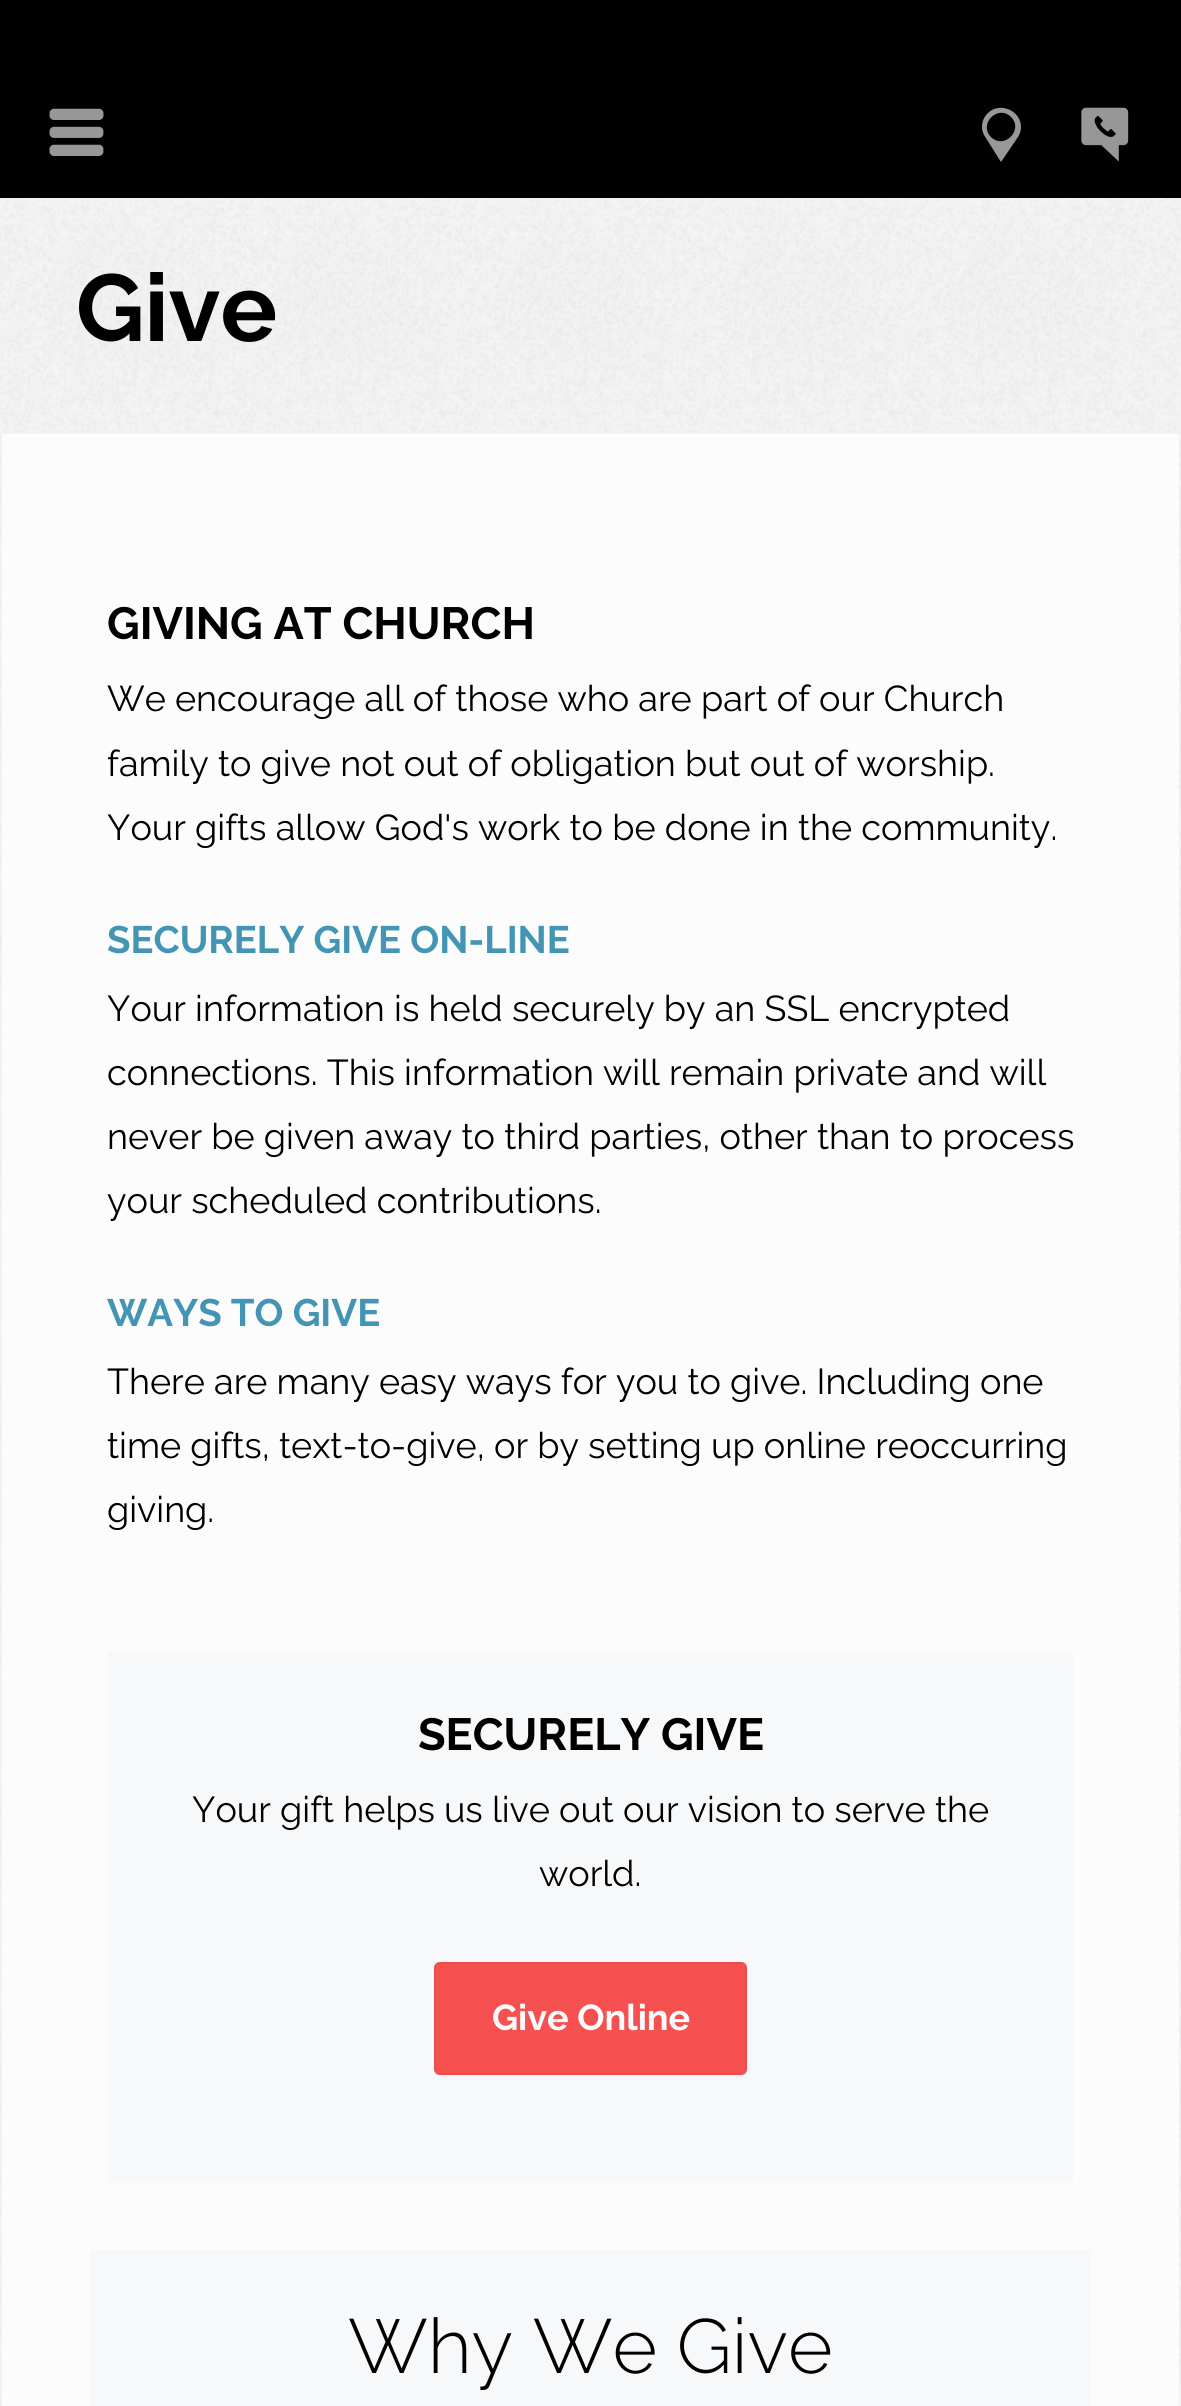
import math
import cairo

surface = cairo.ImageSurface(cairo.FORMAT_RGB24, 1181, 2406)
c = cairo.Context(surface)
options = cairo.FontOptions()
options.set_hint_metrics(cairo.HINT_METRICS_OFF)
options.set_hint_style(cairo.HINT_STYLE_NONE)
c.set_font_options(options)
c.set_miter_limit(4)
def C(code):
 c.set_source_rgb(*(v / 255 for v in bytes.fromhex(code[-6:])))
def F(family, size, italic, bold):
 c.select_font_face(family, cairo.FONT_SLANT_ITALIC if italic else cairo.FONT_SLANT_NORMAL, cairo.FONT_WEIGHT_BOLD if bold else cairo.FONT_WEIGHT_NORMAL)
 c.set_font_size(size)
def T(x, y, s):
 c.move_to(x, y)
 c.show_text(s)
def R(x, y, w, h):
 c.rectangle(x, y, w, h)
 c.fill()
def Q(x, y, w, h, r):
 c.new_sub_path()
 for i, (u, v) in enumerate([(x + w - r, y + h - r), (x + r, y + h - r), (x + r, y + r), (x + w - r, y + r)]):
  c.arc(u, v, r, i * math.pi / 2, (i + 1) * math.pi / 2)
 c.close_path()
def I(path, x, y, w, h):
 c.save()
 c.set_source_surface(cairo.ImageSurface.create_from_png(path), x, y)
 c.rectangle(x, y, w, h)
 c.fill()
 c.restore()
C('ffffff')
c.paint()
C('010101')
R(0,0,1181,198)
I('1.png',49,108,55,48)
C('989898')
c.new_path()
c.move_to(1021,127)
c.curve_to(1021,130,1020,134,1018,137)
c.line_to(1001,162)
c.line_to(984,135)
c.curve_to(980,127,982,118,989,112)
c.curve_to(1001,102,1021,111,1021,127)
c.close_path()
c.move_to(991,137)
c.curve_to(1004,150,1024,130,1011,117)
c.curve_to(998,104,978,124,991,137)
c.close_path()
c.fill()
I('2.png',1081,107,48,55)
I('3.png',0,198,1181,2208)
C('f6f6f6')
R(0,299,2,2)
c.set_source_rgba(1,1,1,0.3)
R(0,560,2,2)
C('f6f6f6')
R(0,691,2,2)
C('f7f7f7')
R(0,821,2,2)
c.set_source_rgba(1,1,1,0.3)
R(0,952,2,2)
R(0,1082,2,2)
F('Raleway',94.5,0,1)
C('000000')
T(76,341,'Give')
C('f2f2f2')
R(0,432,1181,5)
C('fcfcfc')
R(2,434,1177,1972)
F('Raleway',45,0,1)
C('000000')
T(107,639,'GIVING AT CHURCH')
F('Raleway',36,0,0)
T(107,711,'We encourage all of those who are part of our Church')
T(107,776,'family to give not out of obligation but out of worship.')
T(107,840,'Your gifts allow God\'s work to be done in the community.')
F('Raleway',38.25,0,1)
C('4495b3')
T(107,953,'SECURELY GIVE ON-LINE')
F('Raleway',36,0,0)
C('000000')
T(107,1021,'Your information is held securely by an SSL encrypted')
T(107,1085,'connections. This information will remain private and will')
T(107,1149,'never be given away to third parties, other than to process')
T(107,1213,'your scheduled contributions.')
F('Raleway',38.25,0,1)
C('4495b3')
T(107,1326,'WAYS TO GIVE')
F('Raleway',36,0,0)
C('000000')
T(107,1394,'There are many easy ways for you to give. Including one')
T(107,1458,'time gifts, text-to-give, or by setting up online reoccurring')
T(107,1522,'giving.')
C('f6f8fa')
R(108,1652,965,531)
F('Raleway',45,0,1)
C('000000')
T(418,1750,'SECURELY GIVE')
F('Raleway',36,0,0)
T(192,1822,'Your gift helps us live out our vision to serve the')
T(539,1886,'world.')
C('f75050')
Q(434,1962,313,113,6)
c.fill()
c.rectangle(435,1963,311,111)
c.set_source_rgba(0,0,0,0.05)
c.stroke()
F('Raleway',36,0,1)
C('fcfcfc')
T(492,2030,'Give Online')
C('f6f8fa')
R(90,2250,1001,156)
F('Raleway Light',76.5,0,0)
C('000000')
T(348,2373,'Why We Give')
surface.write_to_png('o.png')
